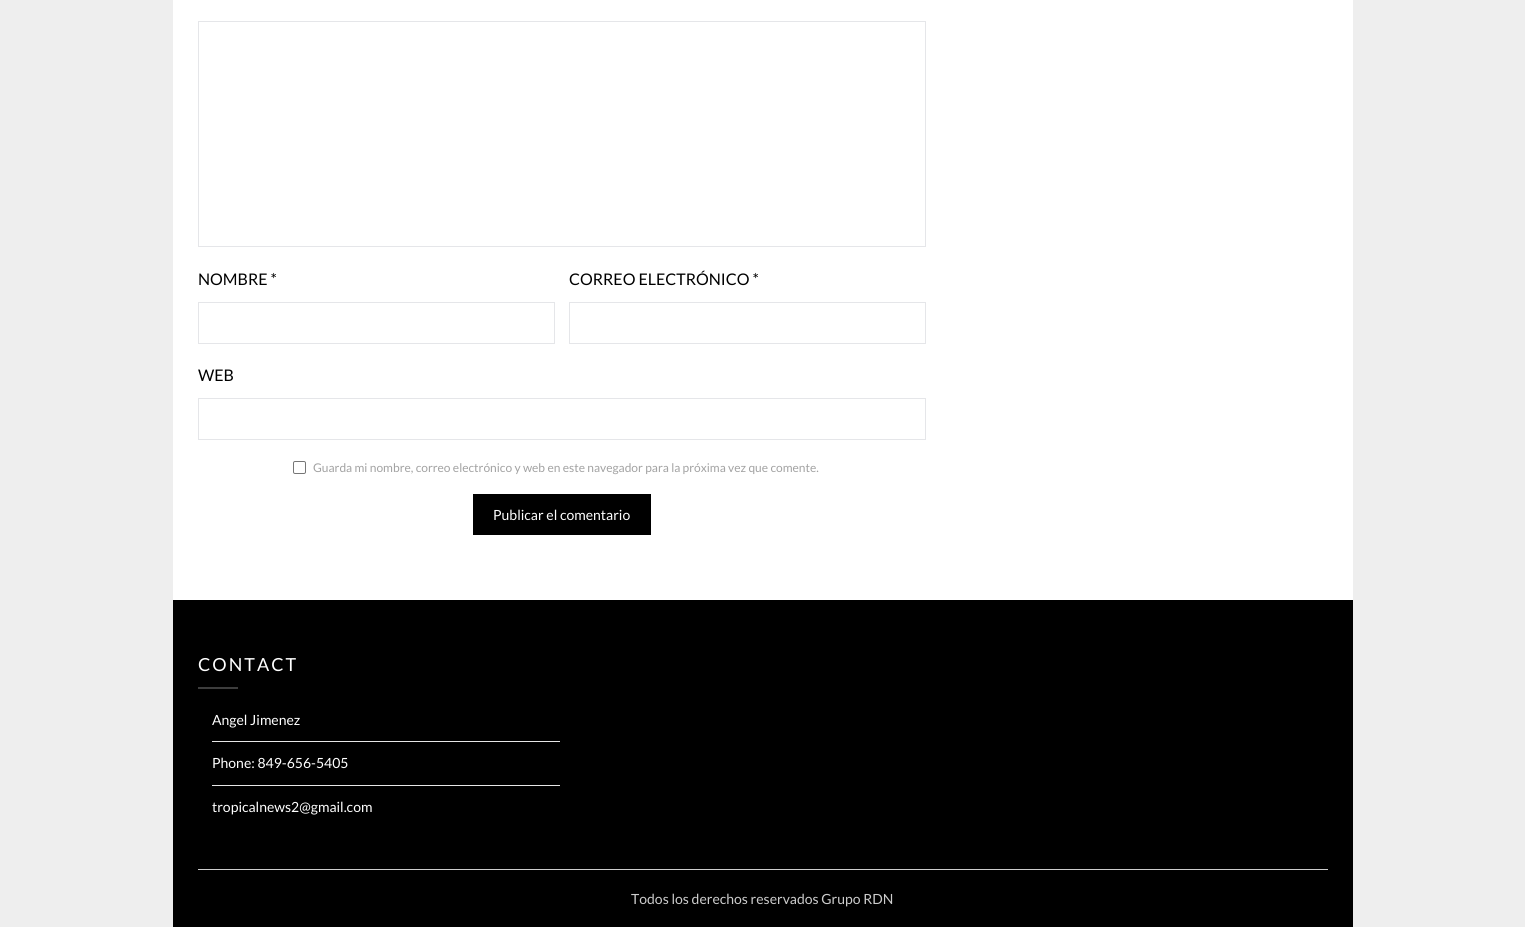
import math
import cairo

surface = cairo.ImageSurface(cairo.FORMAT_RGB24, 1525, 927)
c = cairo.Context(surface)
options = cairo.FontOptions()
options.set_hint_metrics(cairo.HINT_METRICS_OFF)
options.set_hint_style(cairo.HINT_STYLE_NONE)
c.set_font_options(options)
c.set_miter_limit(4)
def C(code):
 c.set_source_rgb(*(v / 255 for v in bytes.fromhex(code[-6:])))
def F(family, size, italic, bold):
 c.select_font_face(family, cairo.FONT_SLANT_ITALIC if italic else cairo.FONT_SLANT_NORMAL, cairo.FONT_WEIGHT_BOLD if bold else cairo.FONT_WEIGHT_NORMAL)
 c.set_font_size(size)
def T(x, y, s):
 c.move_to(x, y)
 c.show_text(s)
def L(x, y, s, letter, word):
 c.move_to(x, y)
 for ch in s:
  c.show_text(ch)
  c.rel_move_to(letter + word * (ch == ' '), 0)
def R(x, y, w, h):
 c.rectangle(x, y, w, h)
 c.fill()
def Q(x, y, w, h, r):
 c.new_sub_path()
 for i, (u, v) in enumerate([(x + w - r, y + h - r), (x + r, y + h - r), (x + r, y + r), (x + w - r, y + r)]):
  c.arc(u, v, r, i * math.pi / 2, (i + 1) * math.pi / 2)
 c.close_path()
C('eeeeee')
c.paint()
C('ffffff')
R(173,0,1180,600)
c.rectangle(198.5,21.5,727,225)
C('e5e6e9')
c.set_line_width(1)
c.stroke()
F('Lato',16,0,0)
C('000000')
T(198,285,'NOMBRE *')
c.rectangle(198.5,302.5,356,41)
C('e5e6e9')
c.stroke()
C('000000')
T(569,285,'CORREO ELECTRÓNICO *')
c.rectangle(569.5,302.5,356,41)
C('e5e6e9')
c.stroke()
C('000000')
T(198,381,'WEB')
c.rectangle(198.5,398.5,727,41)
C('e5e6e9')
c.stroke()
Q(293.5,461.5,12,12,1.5)
C('767676')
c.stroke()
F('Lato',12,0,0)
C('a2a2a2')
T(313,472,'Guarda mi nombre, correo electrónico y web en este navegador para la próxima vez que comente.')
C('000000')
R(473,494,178,41)
F('Lato',14,0,0)
C('ffffff')
T(493,520,'Publicar el comentario')
C('000000')
R(173,600,1180,327)
F('Lato',18,0,0)
C('ffffff')
L(198,671,'CONTACT',2,0)
C('3d3d3d')
R(198,687,40,2)
C('e6e6e6')
R(212,741,348,1)
F('Lato',14,0,0)
C('ffffff')
T(212,725,'Angel Jimenez')
C('e6e6e6')
R(212,785,348,1)
C('ffffff')
T(212,768,'Phone: 849-656-5405')
T(212,812,'tropicalnews2@gmail.com')
C('cccccc')
R(198,869,1130,1)
T(631,904,'Todos los derechos reservados Grupo RDN')
surface.write_to_png('o.png')
